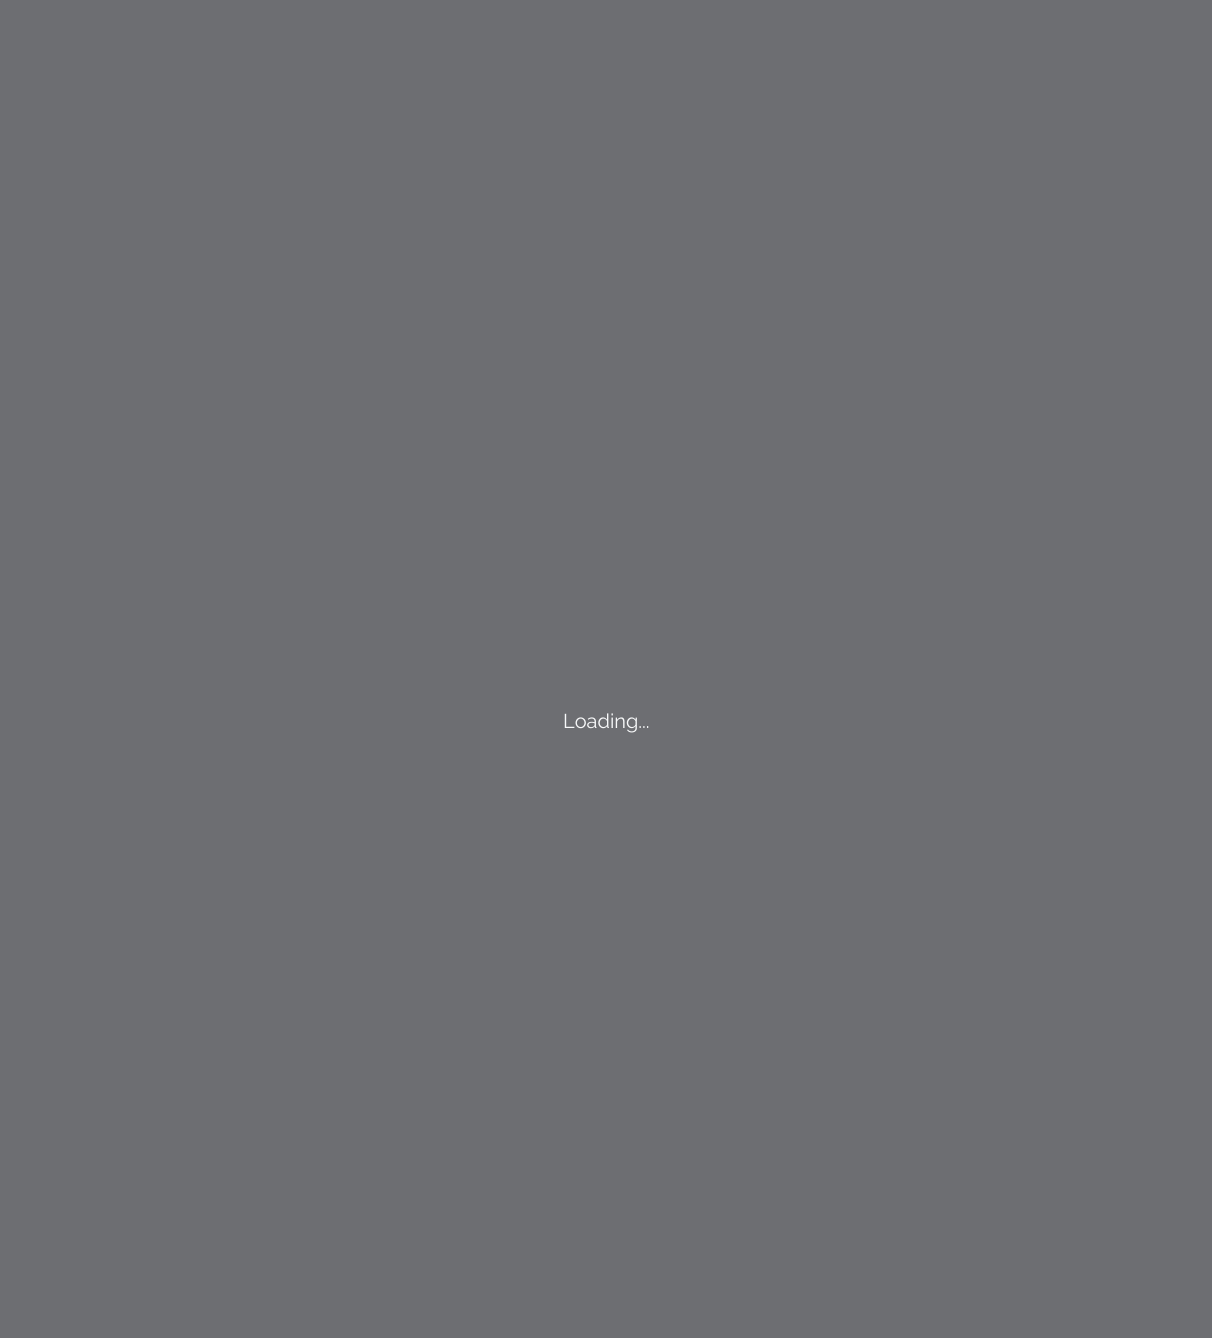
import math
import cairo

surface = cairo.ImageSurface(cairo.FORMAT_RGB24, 1212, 1338)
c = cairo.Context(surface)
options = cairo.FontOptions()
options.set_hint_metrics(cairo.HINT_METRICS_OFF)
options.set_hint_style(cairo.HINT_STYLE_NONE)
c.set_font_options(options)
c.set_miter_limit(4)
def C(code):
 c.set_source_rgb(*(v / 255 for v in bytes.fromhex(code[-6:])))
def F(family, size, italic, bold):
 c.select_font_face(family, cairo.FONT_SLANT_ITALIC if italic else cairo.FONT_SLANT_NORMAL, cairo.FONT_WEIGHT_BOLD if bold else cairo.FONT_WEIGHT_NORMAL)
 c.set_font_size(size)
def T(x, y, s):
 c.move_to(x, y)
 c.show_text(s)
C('6d6e72')
c.paint()
F('Raleway',20,0,0)
C('f8f9fa')
T(563,728,'Loading...')
surface.write_to_png('o.png')
